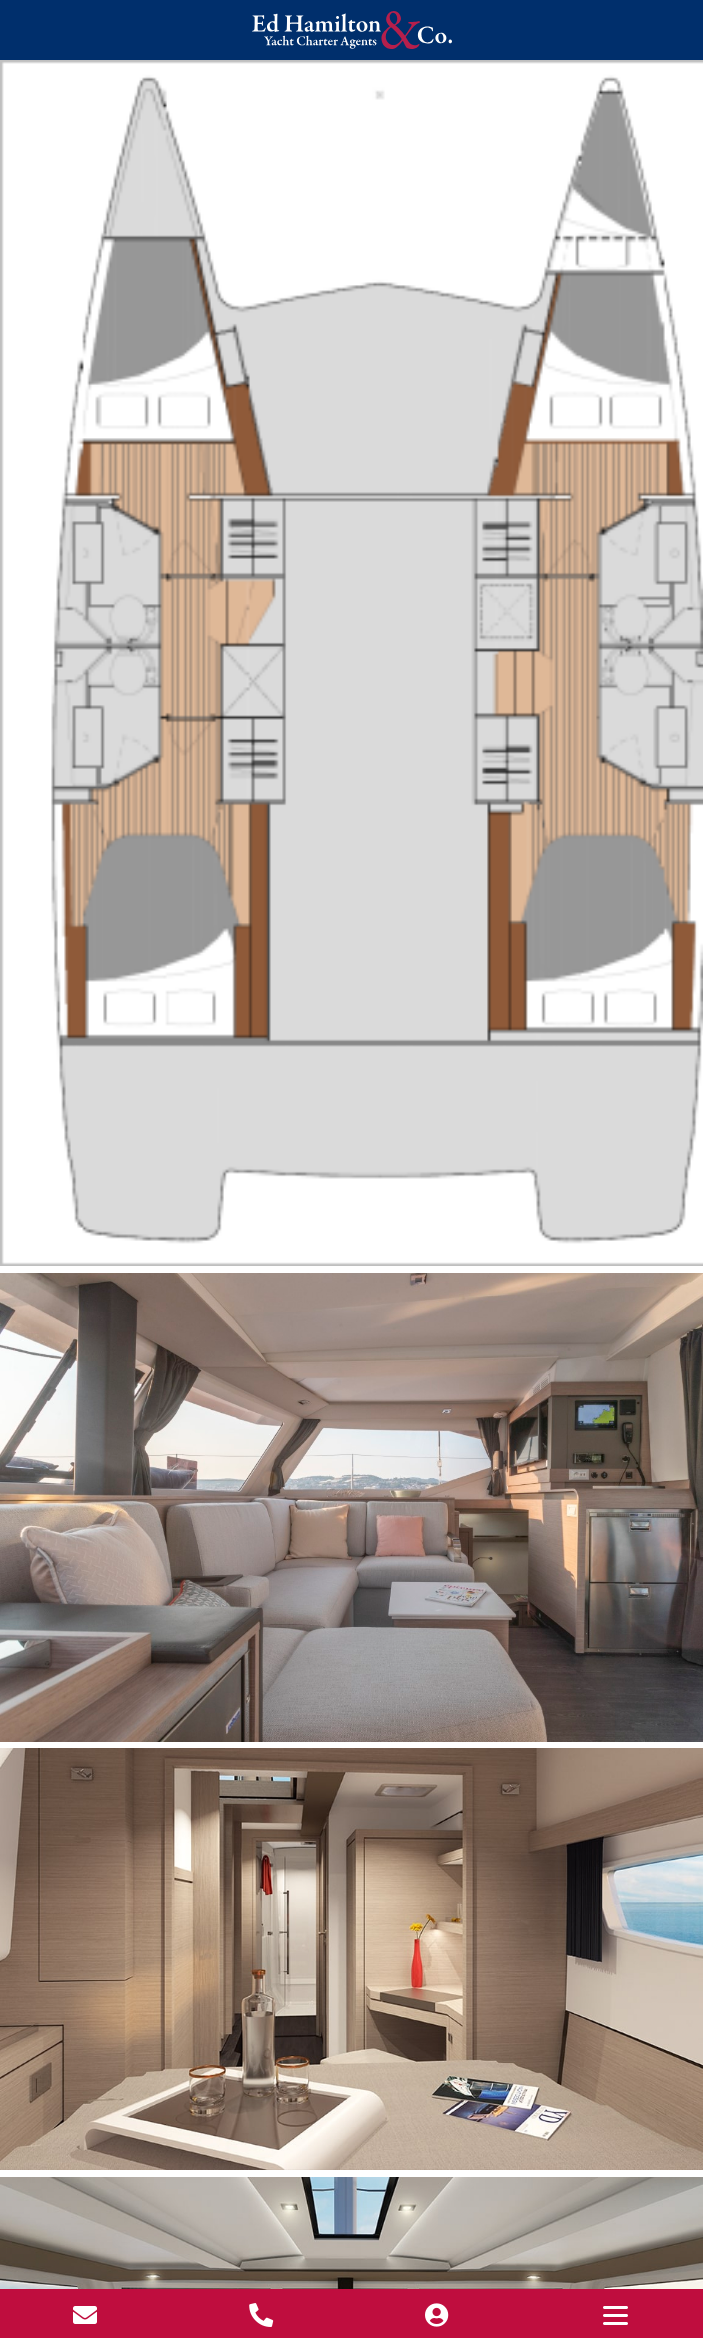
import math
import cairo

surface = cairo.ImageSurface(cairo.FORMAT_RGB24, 703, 2338)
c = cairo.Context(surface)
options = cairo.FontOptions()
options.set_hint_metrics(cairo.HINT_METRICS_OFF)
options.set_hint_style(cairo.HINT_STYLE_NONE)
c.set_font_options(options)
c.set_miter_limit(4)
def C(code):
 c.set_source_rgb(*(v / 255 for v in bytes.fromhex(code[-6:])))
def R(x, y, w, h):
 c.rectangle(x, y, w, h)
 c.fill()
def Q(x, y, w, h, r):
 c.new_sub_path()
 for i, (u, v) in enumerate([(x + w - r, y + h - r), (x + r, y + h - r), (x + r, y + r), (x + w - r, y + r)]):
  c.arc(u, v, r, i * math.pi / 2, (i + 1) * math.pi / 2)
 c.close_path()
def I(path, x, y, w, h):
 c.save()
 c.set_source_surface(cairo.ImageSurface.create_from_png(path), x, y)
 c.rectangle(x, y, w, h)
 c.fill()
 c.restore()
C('ffffff')
c.paint()
C('002f6c')
R(0,0,703,60)
I('1.png',252,11,200,38)
I('2.png',0,60,703,1206)
I('3.png',0,1273,703,469)
I('4.png',0,1748,703,422)
I('5.png',0,2177,703,112)
C('bf0d3e')
R(0,2289,703,49)
I('6.png',73,2306,24,18)
I('7.png',249,2303,25,24)
I('8.png',425,2303,24,24)
C('ffffff')
Q(603,2314,25,3,1.5)
c.fill()
Q(603,2306,25,3,1.5)
c.fill()
Q(603,2322,25,3,1.5)
c.fill()
surface.write_to_png('o.png')
